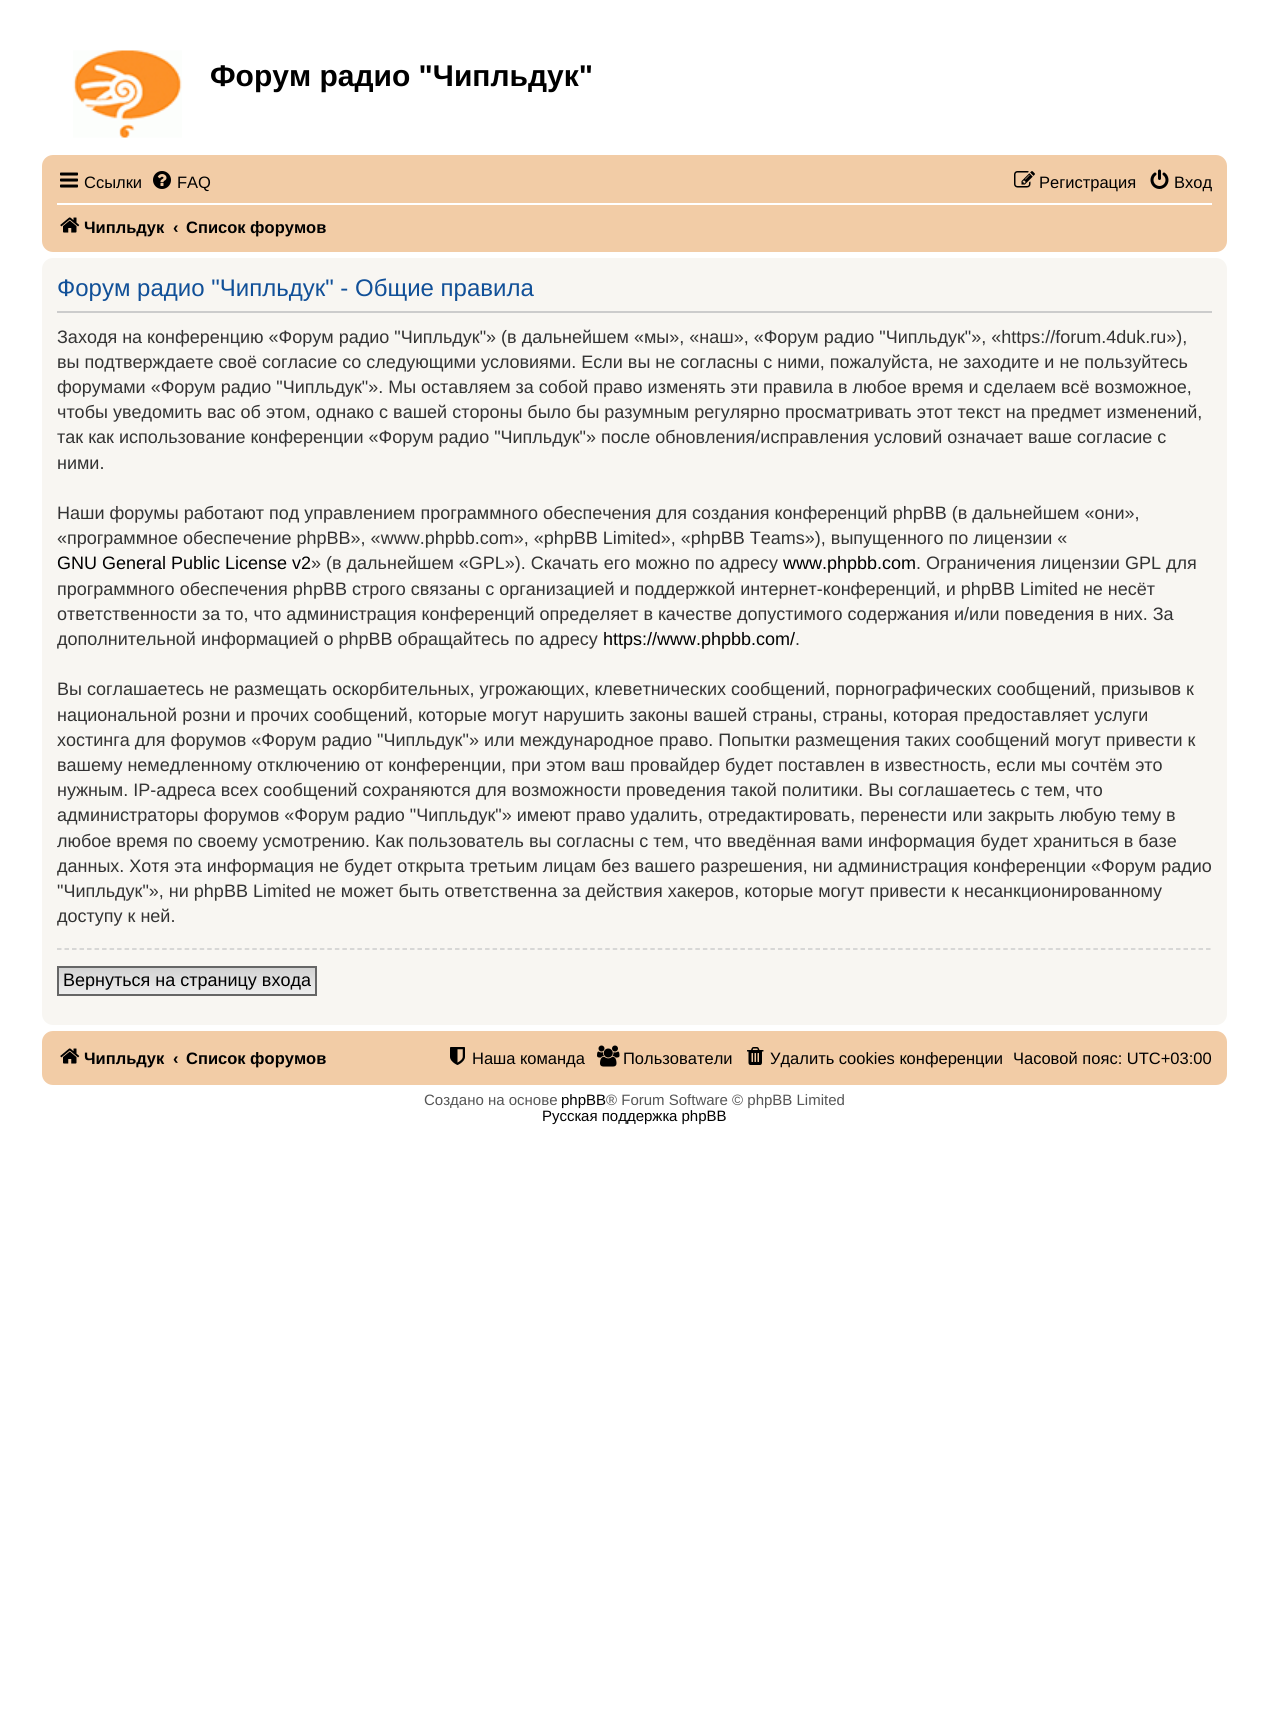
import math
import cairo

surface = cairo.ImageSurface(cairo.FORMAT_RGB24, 1268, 1712)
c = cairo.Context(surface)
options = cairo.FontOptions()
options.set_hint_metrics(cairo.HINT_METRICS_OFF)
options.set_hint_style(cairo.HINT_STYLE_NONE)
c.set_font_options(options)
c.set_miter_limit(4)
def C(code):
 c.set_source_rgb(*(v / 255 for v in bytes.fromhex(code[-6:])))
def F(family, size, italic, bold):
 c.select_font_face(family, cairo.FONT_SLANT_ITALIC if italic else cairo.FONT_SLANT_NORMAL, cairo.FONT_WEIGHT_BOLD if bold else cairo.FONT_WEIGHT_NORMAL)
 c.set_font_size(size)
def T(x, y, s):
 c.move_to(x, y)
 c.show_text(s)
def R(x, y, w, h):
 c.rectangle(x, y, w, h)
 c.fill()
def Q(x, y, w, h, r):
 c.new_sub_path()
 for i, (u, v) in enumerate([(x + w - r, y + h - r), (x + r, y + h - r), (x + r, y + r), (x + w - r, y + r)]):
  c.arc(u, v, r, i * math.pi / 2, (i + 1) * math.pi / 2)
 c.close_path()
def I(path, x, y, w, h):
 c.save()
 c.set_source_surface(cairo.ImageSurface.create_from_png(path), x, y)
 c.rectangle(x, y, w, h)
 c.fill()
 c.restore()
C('ffffff')
c.paint()
I('1.png',73,50,109,88)
F('Liberation Sans',30,0,1)
C('000000')
T(210,86,'Форум радио "Чипльдук"')
C('f2cca6')
Q(42,155,1185,97,11)
c.fill()
I('2.png',60,172,18,16)
F('Liberation Sans',16.5,0,0)
C('000000')
T(84,188,'Ссылки')
I('3.png',153,171,18,18)
T(177,188,'FAQ')
I('4.png',1014,171,21,17)
T(1039,188,'Регистрация')
I('5.png',1150,169,19,20)
T(1174,188,'Вход')
C('ffffff')
R(57,203,1155,2)
I('6.png',60,217,20,16)
F('Liberation Sans',16.5,0,1)
C('000000')
T(84,233,'Чипльдук')
T(173,233,'‹')
T(186,233,'Список форумов')
C('f8f6f2')
Q(42,258,1185,767,11)
c.fill()
C('cccccc')
R(57,311,1155,2)
F('Liberation Sans',24,0,0)
C('115098')
T(57,296,'Форум радио "Чипльдук" - Общие правила')
F('Liberation Sans',18,0,0)
C('333333')
T(57,343,'Заходя на конференцию «Форум радио "Чипльдук"» (в дальнейшем «мы», «наш», «Форум радио "Чипльдук"», «https://forum.4duk.ru»),')
T(57,368,'вы подтверждаете своё согласие со следующими условиями. Если вы не согласны с ними, пожалуйста, не заходите и не пользуйтесь')
T(57,393,'форумами «Форум радио "Чипльдук"». Мы оставляем за собой право изменять эти правила в любое время и сделаем всё возможное,')
T(57,418,'чтобы уведомить вас об этом, однако с вашей стороны было бы разумным регулярно просматривать этот текст на предмет изменений,')
T(57,443,'так как использование конференции «Форум радио "Чипльдук"» после обновления/исправления условий означает ваше согласие с')
T(57,469,'ними.')
T(57,519,'Наши форумы работают под управлением программного обеспечения для создания конференций phpBB (в дальнейшем «они»,')
T(57,544,'«программное обеспечение phpBB», «www.phpbb.com», «phpBB Limited», «phpBB Teams»), выпущенного по лицензии «')
C('000000')
T(57,569,'GNU General Public License v2')
C('333333')
T(311,569,'» (в дальнейшем «GPL»). Скачать его можно по адресу')
C('000000')
T(783,569,'www.phpbb.com')
C('333333')
T(916,569,'. Ограничения лицензии GPL для')
T(57,595,'программного обеспечения phpBB строго связаны с организацией и поддержкой интернет-конференций, и phpBB Limited не несёт')
T(57,620,'ответственности за то, что администрация конференций определяет в качестве допустимого содержания и/или поведения в них. За')
T(57,645,'дополнительной информацией о phpBB обращайтесь по адресу')
C('000000')
T(603,645,'https://www.phpbb.com/')
C('333333')
T(795,645,'.')
T(57,695,'Вы соглашаетесь не размещать оскорбительных, угрожающих, клеветнических сообщений, порнографических сообщений, призывов к')
T(57,721,'национальной розни и прочих сообщений, которые могут нарушить законы вашей страны, страны, которая предоставляет услуги')
T(57,746,'хостинга для форумов «Форум радио "Чипльдук"» или международное право. Попытки размещения таких сообщений могут привести к')
T(57,771,'вашему немедленному отключению от конференции, при этом ваш провайдер будет поставлен в известность, если мы сочтём это')
T(57,796,'нужным. IP-адреса всех сообщений сохраняются для возможности проведения такой политики. Вы соглашаетесь с тем, что')
T(57,821,'администраторы форумов «Форум радио "Чипльдук"» имеют право удалить, отредактировать, перенести или закрыть любую тему в')
T(57,847,'любое время по своему усмотрению. Как пользователь вы согласны с тем, что введённая вами информация будет храниться в базе')
T(57,872,'данных. Хотя эта информация не будет открыта третьим лицам без вашего разрешения, ни администрация конференции «Форум радио')
T(57,897,'"Чипльдук"», ни phpBB Limited не может быть ответственна за действия хакеров, которые могут привести к несанкционированному')
T(57,922,'доступу к ней.')
c.new_path()
c.move_to(57,949)
c.line_to(1212,949)
C('cccccc')
c.set_line_width(1.5)
c.set_dash([4.5,3.01])
c.stroke()
gradient = cairo.LinearGradient(187,968,187,995)
gradient.add_color_stop_rgba(0,0.824,0.824,0.824,1)
gradient.add_color_stop_rgba(1,0.937,0.937,0.937,1)
c.set_source(gradient)
R(59,968,256,26)
c.rectangle(58,967,258,28)
C('666666')
c.set_line_width(2)
c.set_dash([])
c.stroke()
C('000000')
T(63,986,'Вернуться на страницу входа')
C('f2cca6')
Q(42,1031,1185,54,11)
c.fill()
I('6.png',60,1048,20,16)
F('Liberation Sans',16.5,0,1)
C('000000')
T(84,1064,'Чипльдук')
T(173,1064,'‹')
T(186,1064,'Список форумов')
I('7.png',450,1047,15,18)
F('Liberation Sans',16.5,0,0)
T(472,1064,'Наша команда')
I('8.png',597,1045,23,22)
T(623,1064,'Пользователи')
I('9.png',747,1047,17,18)
T(770,1064,'Удалить cookies конференции')
T(1013,1064,'Часовой пояс: UTC+03:00')
F('Liberation Sans',15,0,0)
C('555555')
T(424,1105,'Создано на основе')
C('000000')
T(561,1105,'phpBB')
C('555555')
T(606,1105,'® Forum Software © phpBB Limited')
C('000000')
T(542,1121,'Русская поддержка phpBB')
surface.write_to_png('o.png')
